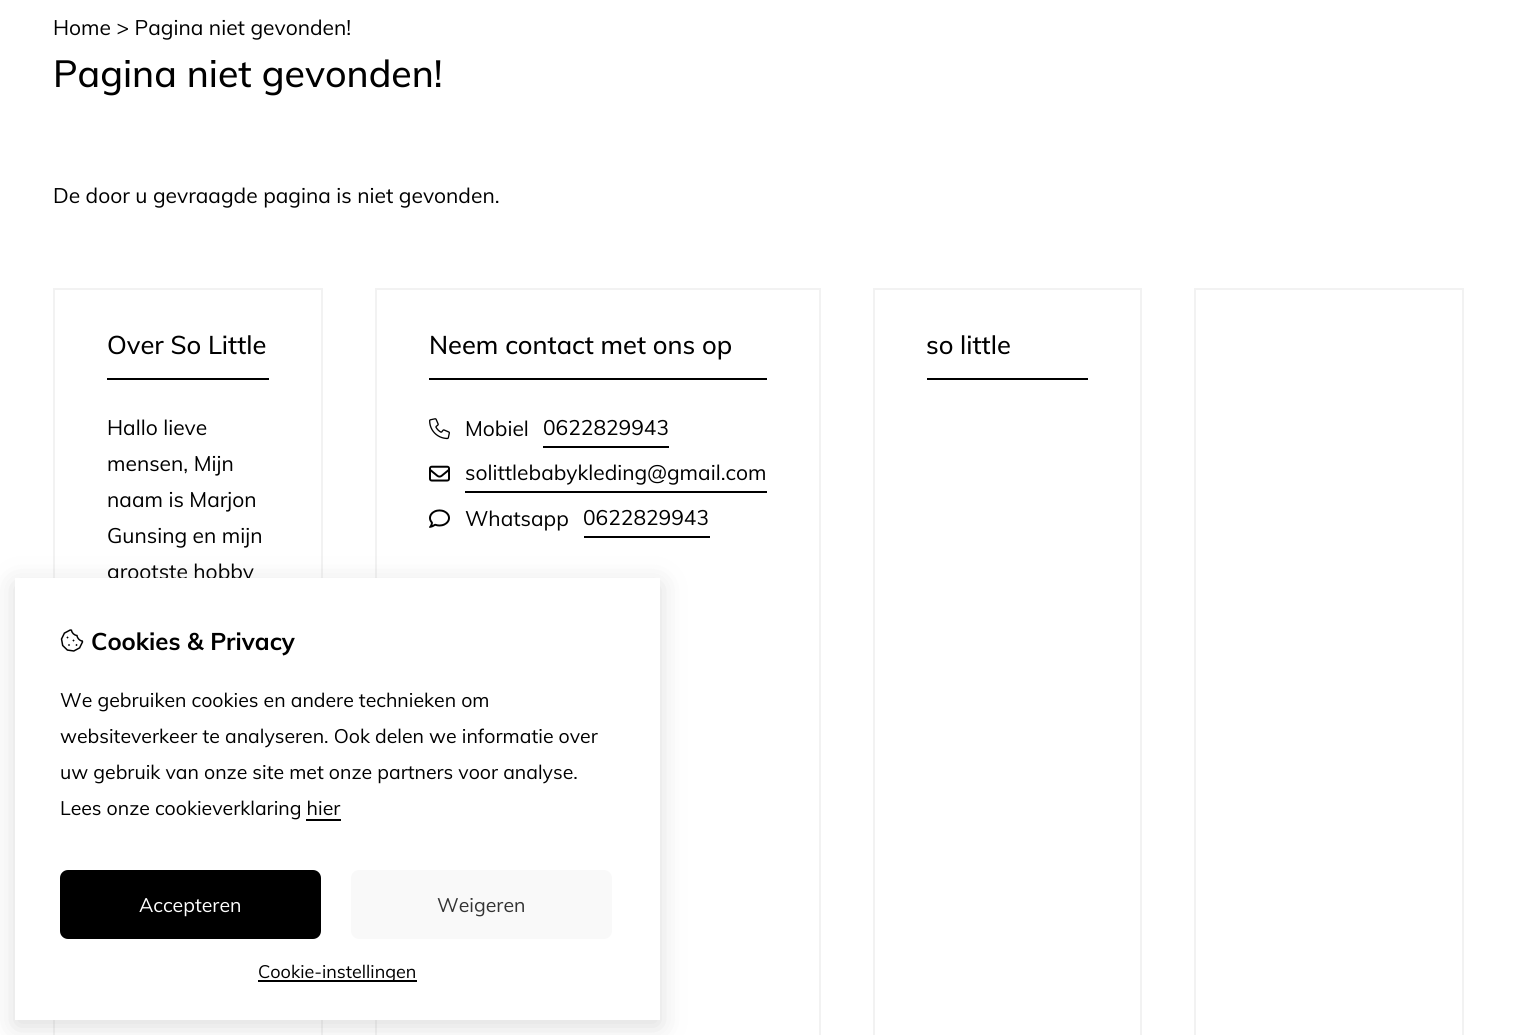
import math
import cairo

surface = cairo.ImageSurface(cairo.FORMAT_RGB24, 1516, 1035)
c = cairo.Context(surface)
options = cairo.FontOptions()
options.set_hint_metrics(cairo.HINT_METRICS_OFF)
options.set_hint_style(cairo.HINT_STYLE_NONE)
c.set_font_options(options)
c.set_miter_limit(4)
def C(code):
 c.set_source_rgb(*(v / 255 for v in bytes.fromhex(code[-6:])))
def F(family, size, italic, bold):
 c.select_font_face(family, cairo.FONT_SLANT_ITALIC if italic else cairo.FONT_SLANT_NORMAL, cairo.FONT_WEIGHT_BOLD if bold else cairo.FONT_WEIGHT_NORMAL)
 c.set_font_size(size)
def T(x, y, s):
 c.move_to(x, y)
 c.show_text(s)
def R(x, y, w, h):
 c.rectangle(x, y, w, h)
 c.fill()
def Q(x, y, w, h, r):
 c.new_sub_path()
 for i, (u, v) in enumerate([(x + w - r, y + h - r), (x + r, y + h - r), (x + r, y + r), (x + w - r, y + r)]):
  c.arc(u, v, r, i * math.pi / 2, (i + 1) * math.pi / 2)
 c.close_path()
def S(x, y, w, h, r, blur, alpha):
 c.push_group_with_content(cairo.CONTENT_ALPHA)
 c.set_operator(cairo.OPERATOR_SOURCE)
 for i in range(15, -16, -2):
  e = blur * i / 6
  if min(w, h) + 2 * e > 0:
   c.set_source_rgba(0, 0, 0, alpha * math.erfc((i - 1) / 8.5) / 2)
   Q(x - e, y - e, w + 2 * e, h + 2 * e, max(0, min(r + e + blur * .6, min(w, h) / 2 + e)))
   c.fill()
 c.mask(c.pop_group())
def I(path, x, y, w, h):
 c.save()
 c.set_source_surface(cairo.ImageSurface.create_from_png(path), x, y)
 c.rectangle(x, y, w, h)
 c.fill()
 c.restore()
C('ffffff')
c.paint()
F('Muli',21,0,0)
C('000000')
T(53,35,'Home > Pagina niet gevonden!')
F('Muli Medium',37.5,0,0)
T(53,87,'Pagina niet gevonden!')
F('Muli',21,0,0)
T(53,203,'De door u gevraagde pagina is niet gevonden.')
c.rectangle(54,289,268,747)
C('f2f2f2')
c.stroke()
C('000000')
R(107,378,162,2)
F('Muli Medium',25.5,0,0)
T(107,354,'Over So Little')
F('Muli',21,0,0)
T(107,435,'Hallo lieve')
T(107,471,'mensen, Mijn')
T(107,507,'naam is Marjon')
T(107,543,'Gunsing en mijn')
T(107,579,'grootste hobby')
c.rectangle(376,289,444,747)
C('f2f2f2')
c.stroke()
C('000000')
R(429,378,338,2)
F('Muli Medium',25.5,0,0)
T(429,354,'Neem contact met ons op')
I('1.png',429,418,21,22)
F('Muli',21,0,0)
T(465,436,'Mobiel')
R(543,446,126,2)
T(543,435,'0622829943')
I('2.png',429,465,21,17)
R(465,491,302,2)
T(465,480,'solittlebabykleding@gmail.com')
I('3.png',429,509,21,19)
T(465,526,'Whatsapp')
R(584,536,126,2)
T(583,525,'0622829943')
c.rectangle(874,289,267,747)
C('f2f2f2')
c.stroke()
C('000000')
R(927,378,161,2)
F('Muli Medium',25.5,0,0)
T(926,354,'so little')
c.rectangle(1195,289,268,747)
C('f2f2f2')
c.stroke()
C('4c4c4c')
S(15,584,645,442,0,13,.2)
C('ffffff')
R(15,578,645,442)
I('4.png',60,629,24,23)
F('Muli',24,0,1)
C('000000')
T(91,650,'Cookies & Privacy')
F('Muli',19.5,0,0)
T(60,707,'We gebruiken cookies en andere technieken om')
T(60,743,'websiteverkeer te analyseren. Ook delen we informatie over')
T(60,779,'uw gebruik van onze site met onze partners voor analyse.')
T(60,815,'Lees onze cookieverklaring hier')
R(306,819,35,2)
Q(60,870,261,69,8)
c.fill()
C('ffffff')
T(139,912,'Accepteren')
C('f9f9f9')
Q(351,870,261,69,8)
c.fill()
C('333333')
T(437,912,'Weigeren')
C('000000')
R(258,980,159,2)
F('Muli',18,0,0)
T(258,978,'Cookie-instellingen')
surface.write_to_png('o.png')
